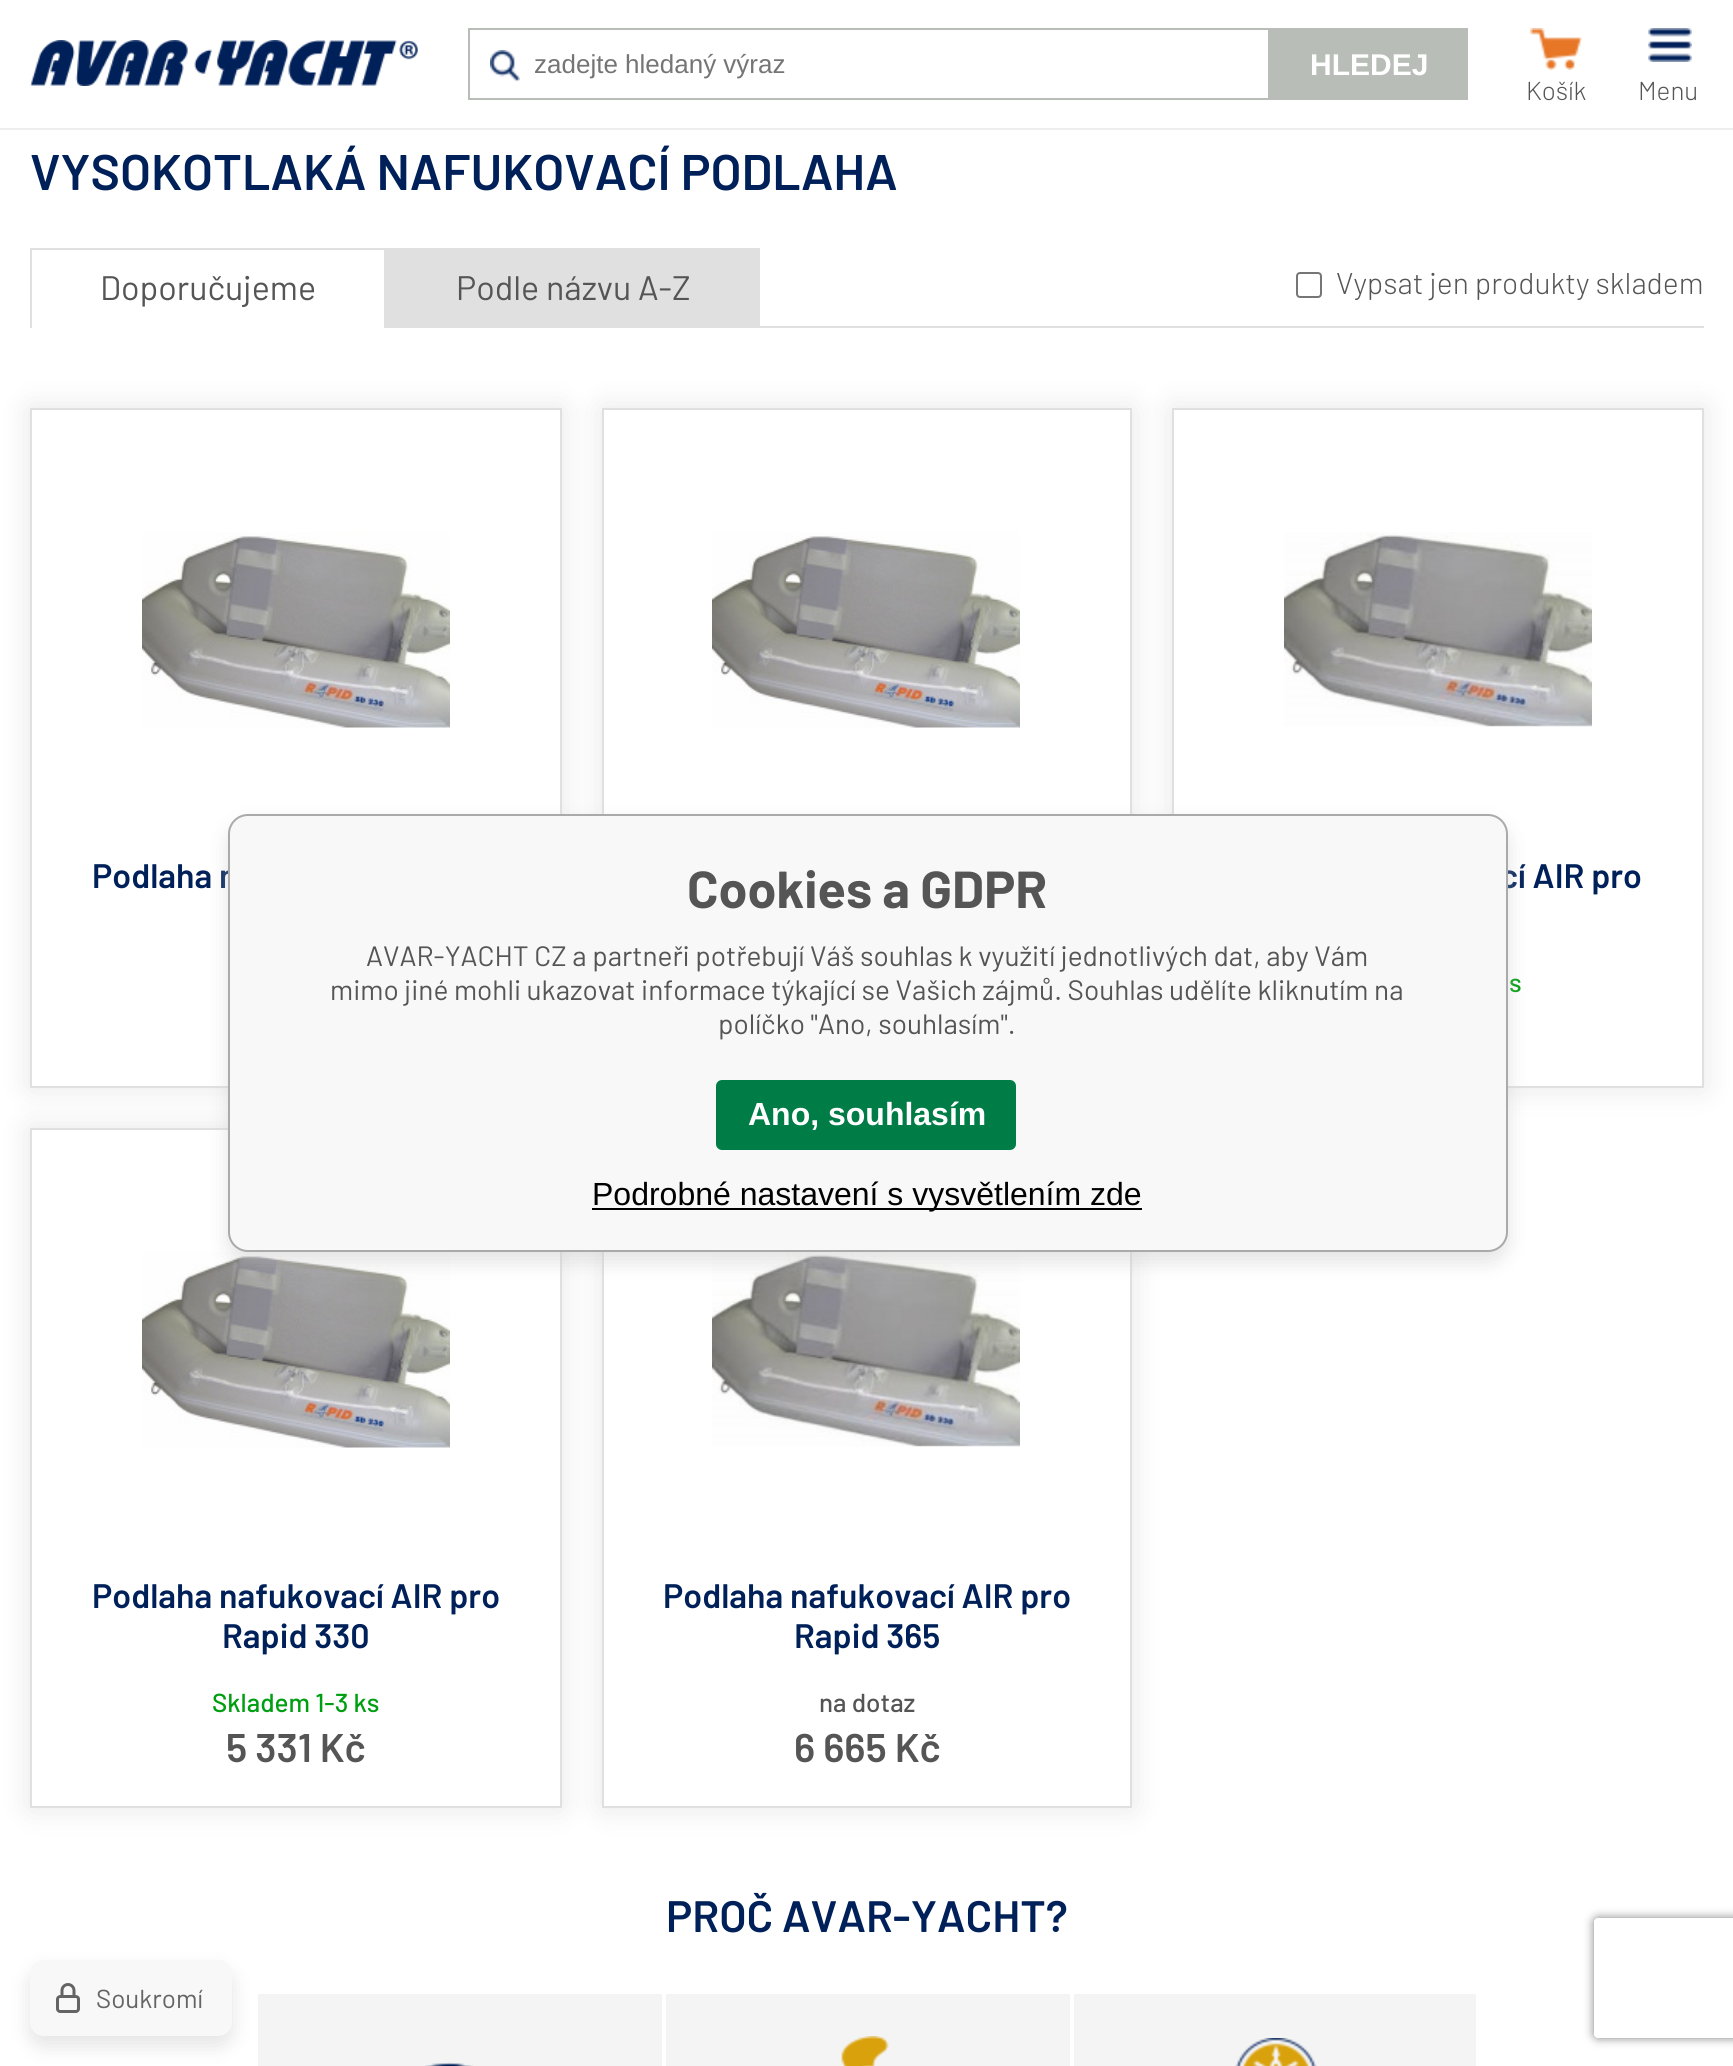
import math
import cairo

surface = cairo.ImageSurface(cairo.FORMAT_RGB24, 1733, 2066)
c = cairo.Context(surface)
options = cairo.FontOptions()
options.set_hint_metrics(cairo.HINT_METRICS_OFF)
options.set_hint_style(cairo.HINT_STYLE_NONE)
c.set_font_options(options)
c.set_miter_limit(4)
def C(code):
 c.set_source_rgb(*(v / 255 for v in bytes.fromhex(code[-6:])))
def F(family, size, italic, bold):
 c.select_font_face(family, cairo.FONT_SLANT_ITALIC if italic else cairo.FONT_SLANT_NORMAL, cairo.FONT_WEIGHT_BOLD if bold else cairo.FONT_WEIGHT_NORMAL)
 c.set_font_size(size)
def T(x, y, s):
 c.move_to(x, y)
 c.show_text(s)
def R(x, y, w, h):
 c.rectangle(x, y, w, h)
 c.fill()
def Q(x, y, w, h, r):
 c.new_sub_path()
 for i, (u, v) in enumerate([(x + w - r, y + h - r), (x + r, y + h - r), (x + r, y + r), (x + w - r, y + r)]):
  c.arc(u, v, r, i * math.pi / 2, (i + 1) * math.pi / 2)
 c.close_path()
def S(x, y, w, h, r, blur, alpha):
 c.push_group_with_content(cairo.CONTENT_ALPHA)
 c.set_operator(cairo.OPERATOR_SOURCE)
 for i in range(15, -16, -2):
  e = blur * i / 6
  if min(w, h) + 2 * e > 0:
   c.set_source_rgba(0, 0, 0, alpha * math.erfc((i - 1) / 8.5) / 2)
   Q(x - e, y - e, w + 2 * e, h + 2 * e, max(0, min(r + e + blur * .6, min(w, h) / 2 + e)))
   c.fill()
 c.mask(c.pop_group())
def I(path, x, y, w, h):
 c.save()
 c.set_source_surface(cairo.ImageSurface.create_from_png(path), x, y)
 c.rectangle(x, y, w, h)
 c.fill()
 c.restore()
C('ffffff')
c.paint()
C('eeeeee')
R(0,128,1733,2)
I('1.png',30,40,388,46)
I('2.png',490,50,30,32)
c.rectangle(469,29,800,70)
C('b8bdb8')
c.stroke()
F('Liberation Sans',26,0,0)
C('757575')
T(534,73,'zadejte hledaný výraz')
C('b8bdb8')
R(1270,28,198,72)
F('Liberation Sans',30,0,1)
C('ffffff')
T(1310,75,'HLEDEJ')
I('3.png',1530,28,52,42)
F('Barlow Light',26,0,0)
C('555555')
T(1526,100,'Košík')
I('4.png',1648,28,44,34)
T(1638,100,'Menu')
F('Barlow SemiBold',50,0,0)
C('002059')
T(30,190,'VYSOKOTLAKÁ NAFUKOVACÍ PODLAHA')
C('e0e0e0')
R(30,326,1674,2)
R(30,248,356,2)
R(384,248,2,78)
R(30,248,2,78)
F('Barlow',34,0,0)
C('555555')
T(100,300,'Doporučujeme')
C('ffffff')
R(32,326,352,2)
C('e0e0e0')
R(386,248,374,78)
C('555555')
T(456,300,'Podle názvu A-Z')
Q(1297,273,24,24,3)
C('767676')
c.stroke()
F('Barlow Light',30,0,0)
C('555555')
T(1336,294,'Vypsat jen produkty skladem')
c.save()
c.set_fill_rule(cairo.FILL_RULE_EVEN_ODD)
c.new_path()
c.move_to(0,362)
c.line_to(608,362)
c.line_to(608,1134)
c.line_to(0,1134)
c.close_path()
c.move_to(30,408)
c.line_to(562,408)
c.line_to(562,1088)
c.line_to(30,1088)
c.close_path()
c.clip()
C('000000')
S(30,408,532,680,0,15,.1)
c.restore()
c.rectangle(31,409,530,678)
C('e0e0e0')
c.stroke()
I('5.png',142,532,308,197)
F('Barlow SemiBold',34,0,0)
C('002059')
T(92,888,'Podlaha n')
c.save()
c.set_fill_rule(cairo.FILL_RULE_EVEN_ODD)
c.new_path()
c.move_to(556,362)
c.line_to(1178,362)
c.line_to(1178,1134)
c.line_to(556,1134)
c.close_path()
c.move_to(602,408)
c.line_to(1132,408)
c.line_to(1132,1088)
c.line_to(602,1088)
c.close_path()
c.clip()
C('000000')
S(602,408,530,680,0,15,.1)
c.restore()
c.rectangle(603,409,528,678)
C('e0e0e0')
c.stroke()
I('6.png',712,532,308,196)
c.save()
c.set_fill_rule(cairo.FILL_RULE_EVEN_ODD)
c.new_path()
c.move_to(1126,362)
c.line_to(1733,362)
c.line_to(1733,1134)
c.line_to(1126,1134)
c.close_path()
c.move_to(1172,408)
c.line_to(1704,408)
c.line_to(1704,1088)
c.line_to(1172,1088)
c.close_path()
c.clip()
C('000000')
S(1172,408,532,680,0,15,.1)
c.restore()
c.rectangle(1173,409,530,678)
c.stroke()
I('7.png',1284,532,308,195)
C('002059')
T(1500,888,'cí AIR pro')
F('Barlow Medium',26,0,0)
C('009e11')
T(1509,992,'s')
c.save()
c.set_fill_rule(cairo.FILL_RULE_EVEN_ODD)
c.new_path()
c.move_to(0,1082)
c.line_to(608,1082)
c.line_to(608,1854)
c.line_to(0,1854)
c.close_path()
c.move_to(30,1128)
c.line_to(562,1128)
c.line_to(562,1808)
c.line_to(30,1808)
c.close_path()
c.clip()
C('000000')
S(30,1128,532,680,0,15,.1)
c.restore()
c.rectangle(31,1129,530,678)
C('e0e0e0')
c.stroke()
I('8.png',142,1252,308,196)
F('Barlow SemiBold',34,0,0)
C('002059')
T(92,1608,'Podlaha nafukovací AIR pro')
T(222,1648,'Rapid 330')
F('Barlow Medium',26,0,0)
C('009e11')
T(212,1712,'Skladem 1-3 ks')
F('Barlow SemiBold',40,0,0)
C('555555')
T(226,1762,'5 331 Kč')
c.save()
c.set_fill_rule(cairo.FILL_RULE_EVEN_ODD)
c.new_path()
c.move_to(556,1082)
c.line_to(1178,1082)
c.line_to(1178,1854)
c.line_to(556,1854)
c.close_path()
c.move_to(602,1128)
c.line_to(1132,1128)
c.line_to(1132,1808)
c.line_to(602,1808)
c.close_path()
c.clip()
C('000000')
S(602,1128,530,680,0,15,.1)
c.restore()
c.rectangle(603,1129,528,678)
C('e0e0e0')
c.stroke()
I('9.png',712,1252,308,195)
F('Barlow SemiBold',34,0,0)
C('002059')
T(663,1608,'Podlaha nafukovací AIR pro')
T(794,1648,'Rapid 365')
F('Barlow Medium',26,0,0)
C('555555')
T(819,1712,'na dotaz')
F('Barlow SemiBold',40,0,0)
T(794,1762,'6 665 Kč')
F('Barlow SemiBold',44,0,0)
C('002059')
T(666,1932,'PROČ AVAR-YACHT?')
C('f4f4f4')
R(258,1994,404,72)
I('10.png',425,2062,48,4)
R(666,1994,404,72)
I('11.png',841,2036,48,30)
R(1074,1994,402,72)
I('12.png',1235,2038,82,28)
C('c8c8c8')
S(228,824,1280,438,20,10,.5)
C('f8f8f8')
Q(229,815,1278,436,19)
c.fill_preserve()
C('aaaaaa')
c.stroke()
F('Barlow',52,0,1)
C('555555')
T(687,908,'Cookies a GDPR')
F('Barlow',28,0,0)
T(366,966,'AVAR-YACHT CZ a partneři potřebují Váš souhlas k využití jednotlivých dat, aby Vám')
T(330,1000,'mimo jiné mohli ukazovat informace týkající se Vašich zájmů. Souhlas udělíte kliknutím na')
T(718,1034,'políčko "Ano, souhlasím".')
C('007c47')
Q(717,1081,298,68,5)
c.fill_preserve()
c.stroke()
F('Liberation Sans',32,0,1)
C('ffffff')
T(748,1125,'Ano, souhlasím')
C('000000')
R(592,1208,550,2)
F('Liberation Sans',32,0,0)
T(592,1205,'Podrobné nastavení s vysvětlením zde')
C('c8c8c8')
S(30,1970,202,76,14,10,.5)
C('f8f8f8')
Q(30,1960,202,76,14)
c.fill()
I('13.png',56,1983,24,30)
F('Barlow',26,0,0)
C('646464')
T(96,2008,'Soukromí')
c.save()
c.set_fill_rule(cairo.FILL_RULE_EVEN_ODD)
c.new_path()
c.move_to(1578,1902)
c.line_to(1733,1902)
c.line_to(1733,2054)
c.line_to(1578,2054)
c.close_path()
c.move_to(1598,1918)
c.line_to(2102,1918)
c.curve_to(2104,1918,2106,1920,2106,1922)
c.line_to(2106,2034)
c.curve_to(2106,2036,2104,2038,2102,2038)
c.line_to(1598,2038)
c.curve_to(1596,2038,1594,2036,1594,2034)
c.line_to(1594,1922)
c.curve_to(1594,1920,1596,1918,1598,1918)
c.close_path()
c.clip()
C('808080')
S(1594,1918,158,120,4,5,1)
c.restore()
surface.write_to_png('o.png')
